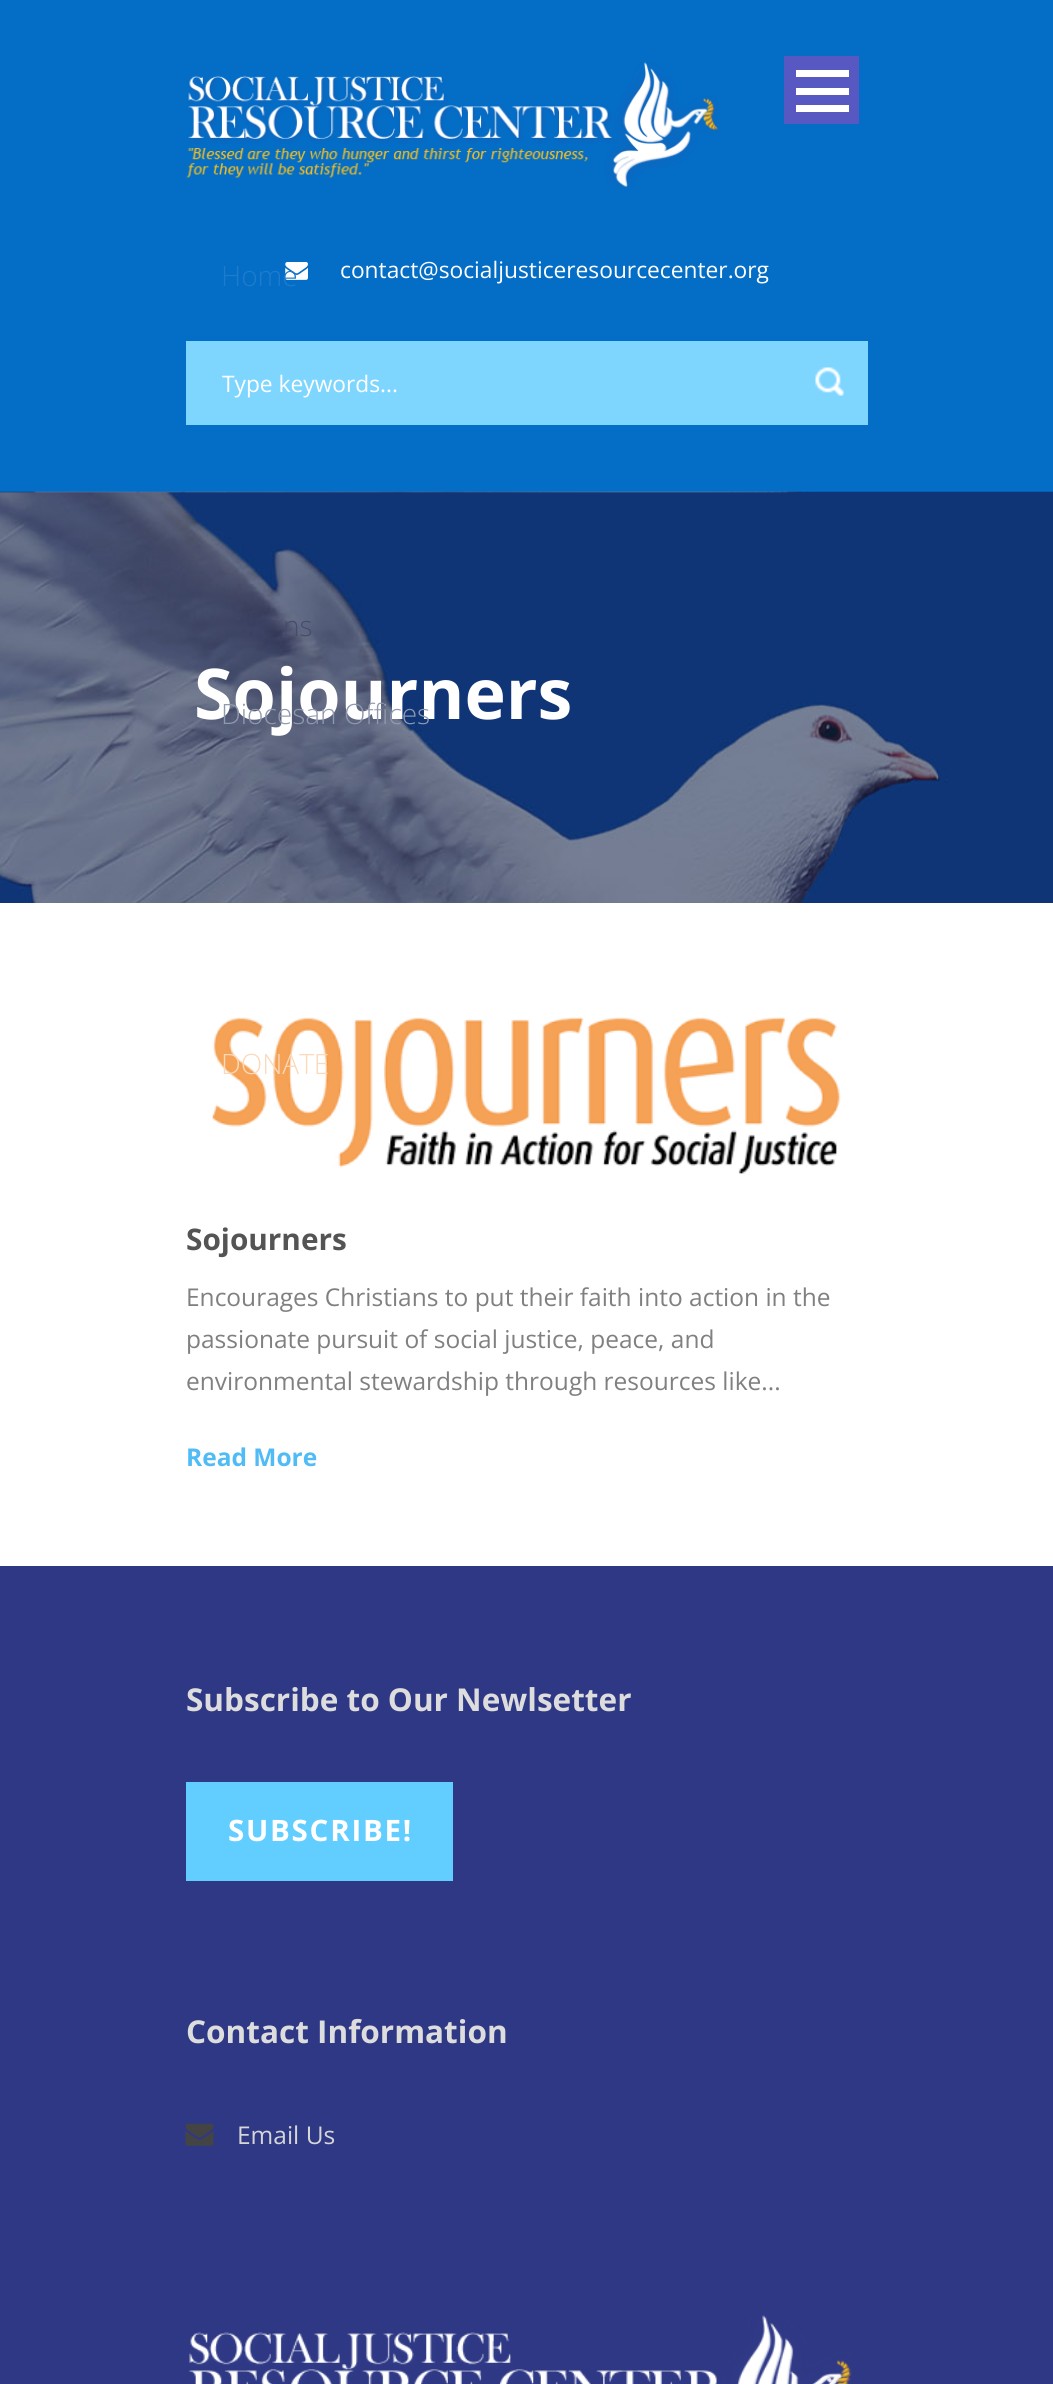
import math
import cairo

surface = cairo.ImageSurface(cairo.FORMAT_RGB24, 1053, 2384)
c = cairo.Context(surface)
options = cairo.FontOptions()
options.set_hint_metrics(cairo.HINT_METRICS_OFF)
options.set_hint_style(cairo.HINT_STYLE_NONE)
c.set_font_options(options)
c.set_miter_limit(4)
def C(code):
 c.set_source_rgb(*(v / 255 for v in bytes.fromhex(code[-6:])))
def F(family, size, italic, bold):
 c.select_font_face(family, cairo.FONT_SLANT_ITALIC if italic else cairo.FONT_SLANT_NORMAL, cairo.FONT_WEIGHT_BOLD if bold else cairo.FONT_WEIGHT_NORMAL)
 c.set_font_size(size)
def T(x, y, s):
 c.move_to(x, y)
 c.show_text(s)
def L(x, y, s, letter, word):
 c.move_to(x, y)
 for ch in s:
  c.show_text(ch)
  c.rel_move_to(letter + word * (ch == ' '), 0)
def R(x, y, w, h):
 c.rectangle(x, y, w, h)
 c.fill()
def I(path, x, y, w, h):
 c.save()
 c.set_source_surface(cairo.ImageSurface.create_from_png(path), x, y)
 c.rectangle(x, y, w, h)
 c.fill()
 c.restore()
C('ffffff')
c.paint()
C('046dc6')
R(0,0,1053,492)
I('1.png',186,62,532,125)
C('5858c2')
R(784,56,75,68)
C('ffffff')
R(796,105,53,7)
R(796,88,53,7)
R(796,70,53,7)
I('2.png',285,262,23,18)
F('Open Sans Light',28,0,0)
C('1d7ccc')
T(221,286,'Home')
I('4.png',0,491,1053,412)
C('464c6b')
T(283,636,'ns')
F('Open Sans',70,0,1)
C('ffffff')
T(194,719,'Sojourners')
F('Open Sans Light',28,0,0)
C('8f98ad')
T(221,724,'Diocesan Offices')
I('5.png',212,1017,629,157)
C('fbd9ba')
T(221,1074,'DONATE')
F('Open Sans',22.75,0,0)
C('ffffff')
T(340,278,'contact@socialjusticeresourcecenter.org')
C('7ed6ff')
R(186,341,682,84)
C('ffffff')
T(222,392,'Type keywords...')
I('3.png',815,367,29,29)
F('Open Sans',29.75,0,1)
C('545454')
T(186,1250,'Sojourners')
F('Open Sans',24.5,0,0)
C('808080')
T(186,1306,'Encourages Christians to put their faith into action in the')
T(186,1348,'passionate pursuit of social justice, peace, and')
T(186,1390,'environmental stewardship through resources like...')
F('Open Sans',24.5,0,1)
C('50bbf4')
T(186,1466,'Read More')
C('2f3884')
R(0,1566,1053,818)
F('Open Sans',31.5,0,1)
C('dddddd')
T(186,1711,'Subscribe to Our Newlsetter')
C('62cdff')
R(186,1782,267,99)
F('Open Sans',29.5,0,1)
C('ffffff')
L(228,1841,'SUBSCRIBE!',1.75,0)
F('Open Sans',31.5,0,1)
C('dddddd')
T(186,2043,'Contact Information')
I('6.png',185,2123,29,23)
F('Open Sans',24.5,0,0)
C('d6d6d6')
T(237,2144,'Email Us')
I('7.png',189,2315,663,69)
surface.write_to_png('o.png')
